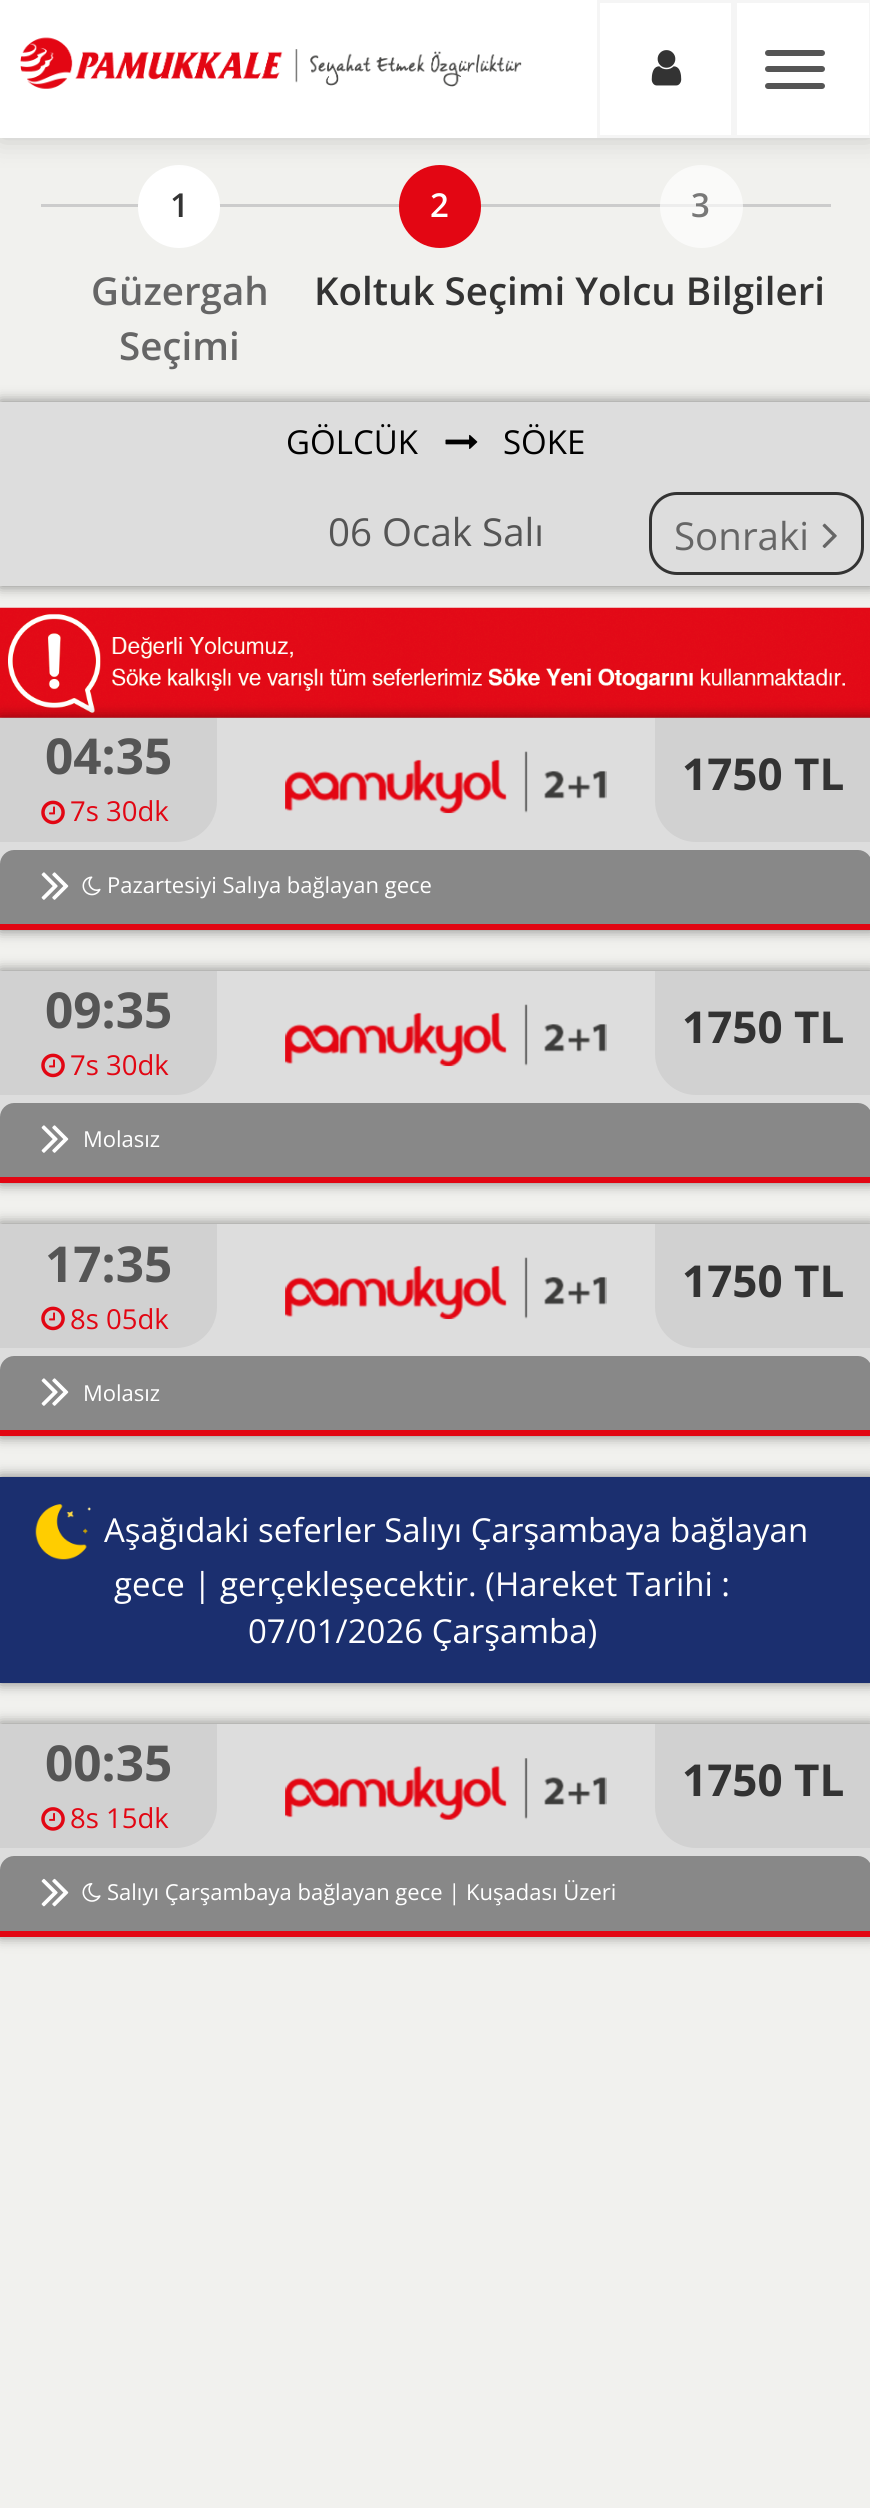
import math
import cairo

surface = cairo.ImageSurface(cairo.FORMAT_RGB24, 870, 2508)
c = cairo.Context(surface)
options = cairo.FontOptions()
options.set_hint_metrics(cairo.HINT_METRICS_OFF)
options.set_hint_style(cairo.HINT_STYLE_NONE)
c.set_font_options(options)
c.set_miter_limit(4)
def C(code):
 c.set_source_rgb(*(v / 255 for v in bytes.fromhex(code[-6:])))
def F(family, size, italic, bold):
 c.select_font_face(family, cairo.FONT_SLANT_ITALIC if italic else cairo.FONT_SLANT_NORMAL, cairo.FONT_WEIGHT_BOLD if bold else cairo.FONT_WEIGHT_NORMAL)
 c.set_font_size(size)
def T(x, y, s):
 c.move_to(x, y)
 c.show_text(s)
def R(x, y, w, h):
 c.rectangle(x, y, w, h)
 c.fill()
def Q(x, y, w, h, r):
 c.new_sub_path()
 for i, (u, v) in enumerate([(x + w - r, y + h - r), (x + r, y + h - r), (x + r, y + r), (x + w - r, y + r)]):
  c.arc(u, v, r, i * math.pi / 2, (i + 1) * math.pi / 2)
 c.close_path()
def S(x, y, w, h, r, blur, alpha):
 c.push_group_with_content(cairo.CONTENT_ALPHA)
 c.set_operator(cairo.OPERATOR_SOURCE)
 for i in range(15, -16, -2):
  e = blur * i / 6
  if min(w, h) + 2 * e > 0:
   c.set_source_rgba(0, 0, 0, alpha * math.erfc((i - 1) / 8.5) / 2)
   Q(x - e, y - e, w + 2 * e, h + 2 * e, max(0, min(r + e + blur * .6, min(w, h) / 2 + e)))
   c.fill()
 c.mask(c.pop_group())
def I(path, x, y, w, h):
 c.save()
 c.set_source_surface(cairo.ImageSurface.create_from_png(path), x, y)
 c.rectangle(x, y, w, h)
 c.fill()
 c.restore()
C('f1f1ee')
c.paint()
C('cccccc')
R(41,204,790,3)
C('ffffff')
Q(138,165,82,83,41)
c.fill()
C('e30613')
Q(399,165,82,83,41)
c.fill()
c.set_source_rgba(1,1,1,0.65)
c.arc(701.5,206.5,41.5,0,2 * math.pi)
c.fill()
C('000000')
S(0,0,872,138,0,14,.18)
C('ffffff')
R(0,0,869,138)
I('1.png',20,37,502,52)
c.rectangle(598.5,1.5,134,135)
C('f5f5f5')
c.set_line_width(3)
c.stroke()
I('2.png',651,50,31,36)
c.rectangle(735.5,1.5,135,135)
c.stroke()
C('555555')
Q(765,50,60,6,3)
c.fill()
Q(765,66,60,6,3)
c.fill()
Q(765,83,60,6,3)
c.fill()
F('Open Sans SemiBold',33,0,0)
C('333333')
T(170,217,'1')
F('Open Sans SemiBold',38.5,0,0)
C('666666')
T(91,305,'Güzergah')
T(119,360,'Seçimi')
F('Open Sans SemiBold',33,0,0)
C('ffffff')
T(430,217,'2')
F('Open Sans SemiBold',38.5,0,0)
C('333333')
T(314,305,'Koltuk Seçimi Yolcu Bilgileri')
F('Open Sans SemiBold',33,0,0)
C('787878')
T(691,217,'3')
C('000000')
S(0,402,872,184,0,7,.48)
C('dddddd')
R(0,402,870,184)
F('Open Sans',33,0,0)
C('000000')
T(286,454,'GÖLCÜK')
I('3.png',445,434,33,15)
T(503,454,'SÖKE')
F('Open Sans',38.5,0,0)
C('555555')
T(328,546,'06 Ocak Salı')
Q(650.5,493.5,212,80,26.5)
C('333333')
c.stroke()
C('666666')
T(674,550,'Sonraki')
I('4.png',822,523,15,25)
I('5.png',0,607,870,111)
C('000000')
S(0,718,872,212,0,7,.48)
C('dddddd')
R(0,718,870,146)
C('e20613')
R(0,924,870,6)
C('d1d1d1')
c.new_path()
c.move_to(0,718)
c.line_to(217,718)
c.line_to(217,801)
c.curve_to(217,823.5,198.5,842,176,842)
c.line_to(0,842)
c.close_path()
c.fill()
F('Open Sans',49.5,0,1)
C('555555')
T(45,774,'04:35')
I('6.png',41,800,24,25)
F('Open Sans',27.5,0,0)
C('e20613')
T(70,821,'7s 30dk')
I('7.png',285,751,322,63)
C('d1d1d1')
c.new_path()
c.move_to(655,718)
c.line_to(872,718)
c.line_to(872,842)
c.line_to(696,842)
c.curve_to(673.5,842,655,823.5,655,801)
c.close_path()
c.fill()
F('Open Sans',44,0,1)
C('333333')
T(682,790,'1750 TL')
C('888888')
c.new_path()
c.move_to(14,850)
c.line_to(858,850)
c.curve_to(865.5,850,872,856.5,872,864)
c.line_to(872,924)
c.line_to(0,924)
c.line_to(0,864)
c.curve_to(0,856.5,6.5,850,14,850)
c.close_path()
c.fill()
I('8.png',41,872,28,28)
I('9.png',82,876,19,20)
F('Open Sans',22,0,0)
C('ffffff')
T(107,893,'Pazartesiyi Salıya bağlayan gece')
C('000000')
S(0,971,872,212,0,7,.48)
C('dddddd')
R(0,971,870,146)
C('e20613')
R(0,1177,870,6)
C('d1d1d1')
c.new_path()
c.move_to(0,971)
c.line_to(217,971)
c.line_to(217,1054)
c.curve_to(217,1076.5,198.5,1095,176,1095)
c.line_to(0,1095)
c.close_path()
c.fill()
F('Open Sans',49.5,0,1)
C('555555')
T(45,1028,'09:35')
I('6.png',41,1053,24,25)
F('Open Sans',27.5,0,0)
C('e20613')
T(70,1075,'7s 30dk')
I('7.png',285,1004,322,63)
C('d1d1d1')
c.new_path()
c.move_to(655,971)
c.line_to(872,971)
c.line_to(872,1095)
c.line_to(696,1095)
c.curve_to(673.5,1095,655,1076.5,655,1054)
c.close_path()
c.fill()
F('Open Sans',44,0,1)
C('333333')
T(682,1043,'1750 TL')
C('888888')
c.new_path()
c.move_to(14,1103)
c.line_to(858,1103)
c.curve_to(865.5,1103,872,1109.5,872,1117)
c.line_to(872,1177)
c.line_to(0,1177)
c.line_to(0,1117)
c.curve_to(0,1109.5,6.5,1103,14,1103)
c.close_path()
c.fill()
I('8.png',41,1125,28,28)
F('Open Sans',22,0,0)
C('ffffff')
T(83,1147,'Molasız')
C('000000')
S(0,1224,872,212,0,7,.48)
C('dddddd')
R(0,1224,870,146)
C('e20613')
R(0,1430,870,6)
C('d1d1d1')
c.new_path()
c.move_to(0,1224)
c.line_to(217,1224)
c.line_to(217,1307)
c.curve_to(217,1329.5,198.5,1348,176,1348)
c.line_to(0,1348)
c.close_path()
c.fill()
F('Open Sans',49.5,0,1)
C('555555')
T(45,1282,'17:35')
I('6.png',41,1306,24,25)
F('Open Sans',27.5,0,0)
C('e20613')
T(70,1329,'8s 05dk')
I('7.png',285,1257,322,63)
C('d1d1d1')
c.new_path()
c.move_to(655,1224)
c.line_to(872,1224)
c.line_to(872,1348)
c.line_to(696,1348)
c.curve_to(673.5,1348,655,1329.5,655,1307)
c.close_path()
c.fill()
F('Open Sans',44,0,1)
C('333333')
T(682,1297,'1750 TL')
C('888888')
c.new_path()
c.move_to(14,1356)
c.line_to(858,1356)
c.curve_to(865.5,1356,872,1362.5,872,1370)
c.line_to(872,1430)
c.line_to(0,1430)
c.line_to(0,1370)
c.curve_to(0,1362.5,6.5,1356,14,1356)
c.close_path()
c.fill()
I('8.png',41,1378,28,28)
F('Open Sans',22,0,0)
C('ffffff')
T(83,1401,'Molasız')
C('000000')
S(0,1477,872,206,0,7,.48)
C('1b2f6f')
R(0,1477,870,206)
I('10.png',35,1504,56,56)
F('Open Sans',33,0,0)
C('ffffff')
T(104,1542,'Aşağıdaki seferler Salıyı Çarşambaya bağlayan')
T(114,1596,'gece | gerçekleşecektir. (Hareket Tarihi :')
T(248,1643,'07/01/2026 Çarşamba)')
C('000000')
S(0,1724,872,212,0,7,.48)
C('dddddd')
R(0,1724,870,146)
C('e20613')
R(0,1931,870,6)
C('d1d1d1')
c.new_path()
c.move_to(0,1724)
c.line_to(217,1724)
c.line_to(217,1807)
c.curve_to(217,1829.5,198.5,1848,176,1848)
c.line_to(0,1848)
c.close_path()
c.fill()
F('Open Sans',49.5,0,1)
C('555555')
T(45,1781,'00:35')
I('11.png',41,1807,24,24)
F('Open Sans',27.5,0,0)
C('e20613')
T(70,1828,'8s 15dk')
I('12.png',285,1758,322,62)
C('d1d1d1')
c.new_path()
c.move_to(655,1724)
c.line_to(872,1724)
c.line_to(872,1848)
c.line_to(696,1848)
c.curve_to(673.5,1848,655,1829.5,655,1807)
c.close_path()
c.fill()
F('Open Sans',44,0,1)
C('333333')
T(682,1796,'1750 TL')
C('888888')
c.new_path()
c.move_to(14,1856)
c.line_to(858,1856)
c.curve_to(865.5,1856,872,1862.5,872,1870)
c.line_to(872,1931)
c.line_to(0,1931)
c.line_to(0,1870)
c.curve_to(0,1862.5,6.5,1856,14,1856)
c.close_path()
c.fill()
I('13.png',41,1878,28,29)
I('14.png',82,1883,19,19)
F('Open Sans',22,0,0)
C('ffffff')
T(107,1900,'Salıyı Çarşambaya bağlayan gece | Kuşadası Üzeri')
surface.write_to_png('o.png')
